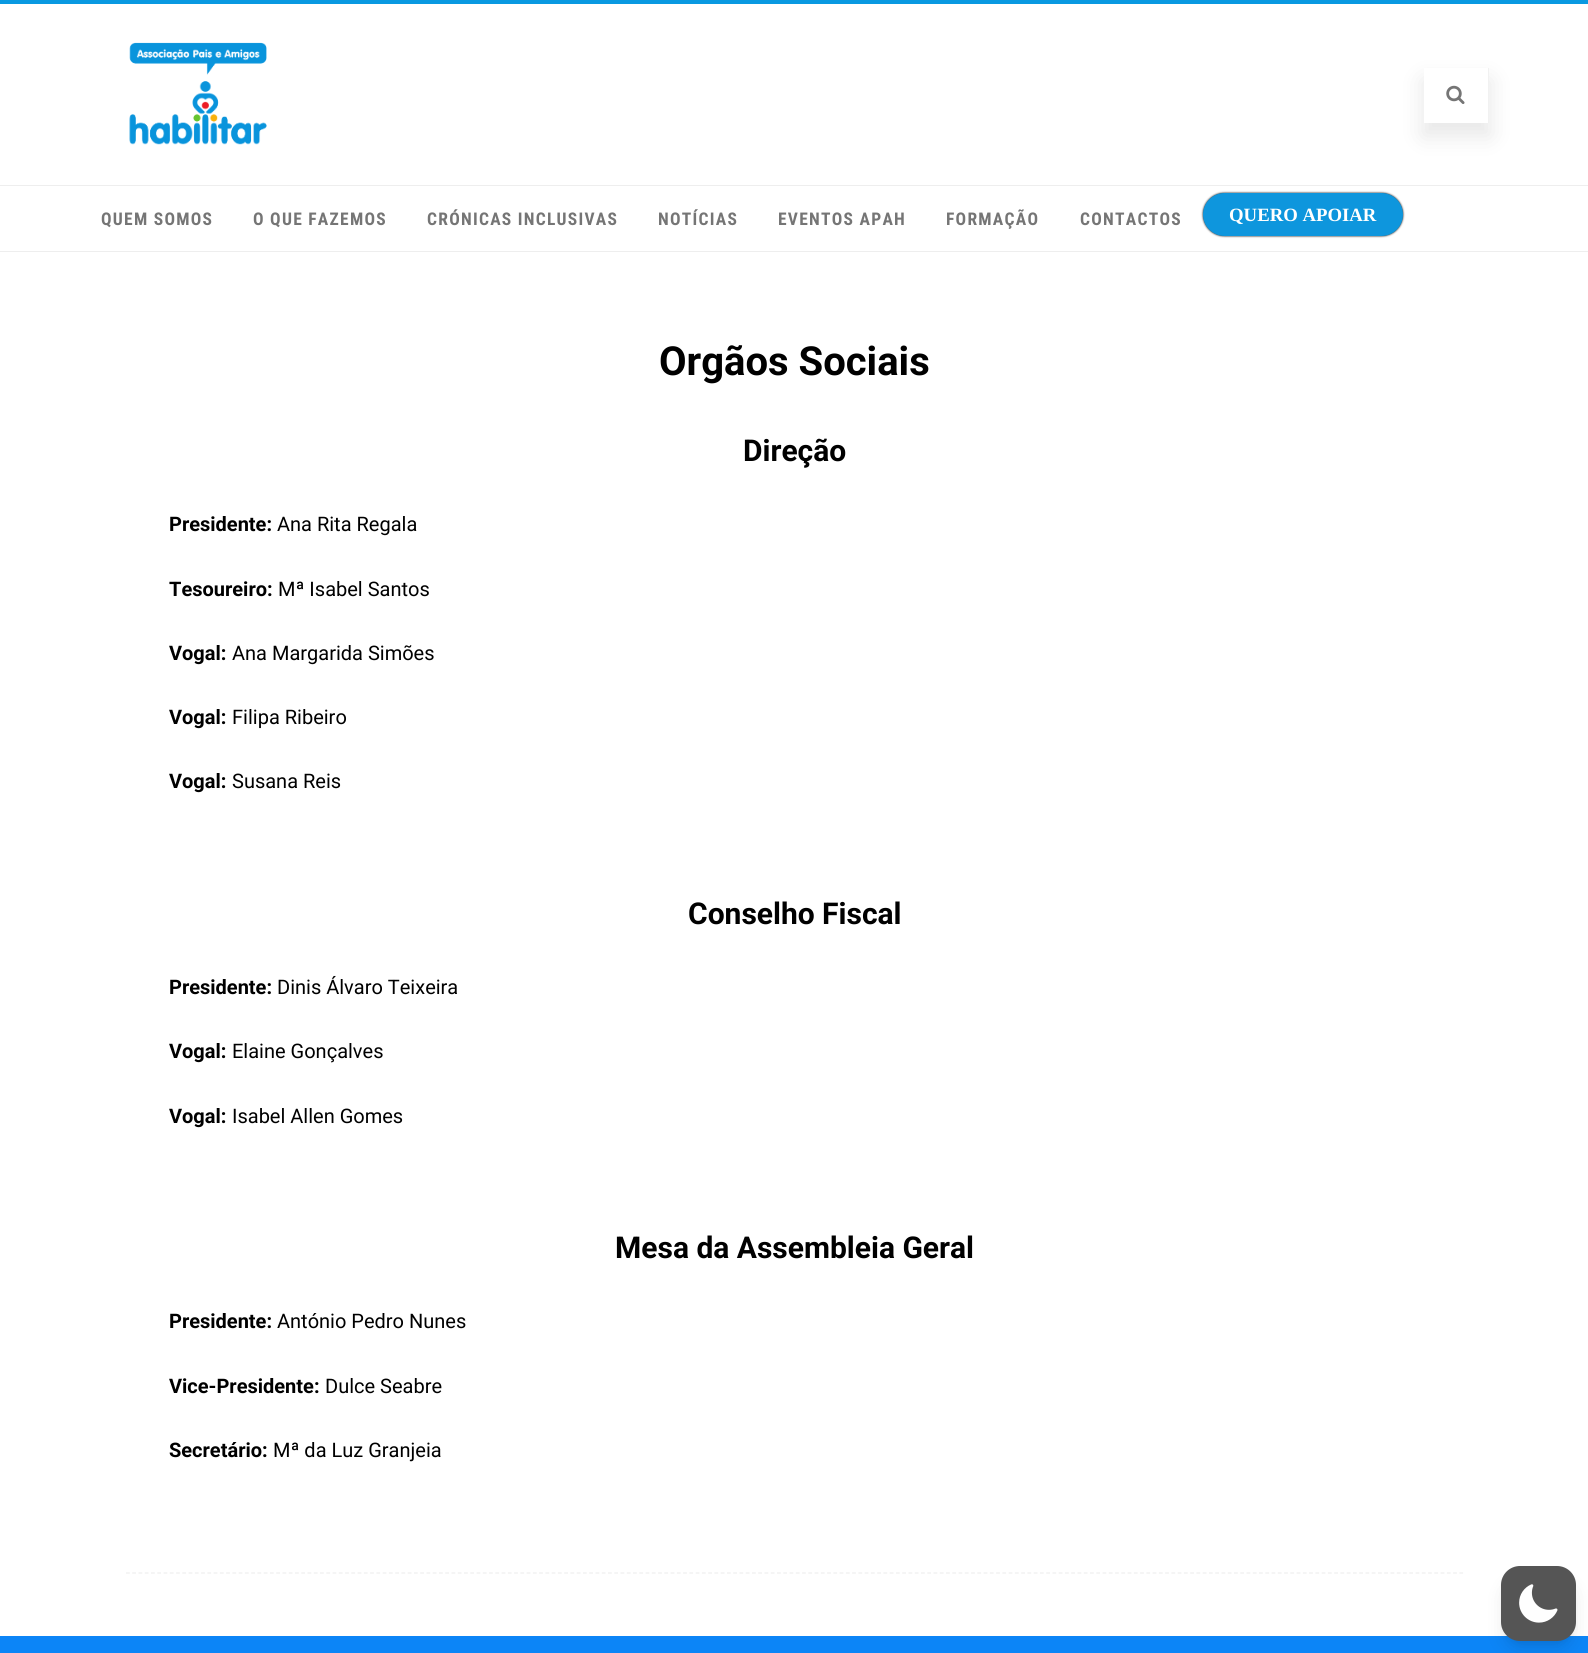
import math
import cairo

surface = cairo.ImageSurface(cairo.FORMAT_RGB24, 1588, 1653)
c = cairo.Context(surface)
options = cairo.FontOptions()
options.set_hint_metrics(cairo.HINT_METRICS_OFF)
options.set_hint_style(cairo.HINT_STYLE_NONE)
c.set_font_options(options)
c.set_miter_limit(4)
def C(code):
 c.set_source_rgb(*(v / 255 for v in bytes.fromhex(code[-6:])))
def F(family, size, italic, bold):
 c.select_font_face(family, cairo.FONT_SLANT_ITALIC if italic else cairo.FONT_SLANT_NORMAL, cairo.FONT_WEIGHT_BOLD if bold else cairo.FONT_WEIGHT_NORMAL)
 c.set_font_size(size)
def T(x, y, s):
 c.move_to(x, y)
 c.show_text(s)
def L(x, y, s, letter, word):
 c.move_to(x, y)
 for ch in s:
  c.show_text(ch)
  c.rel_move_to(letter + word * (ch == ' '), 0)
def R(x, y, w, h):
 c.rectangle(x, y, w, h)
 c.fill()
def Q(x, y, w, h, r):
 c.new_sub_path()
 for i, (u, v) in enumerate([(x + w - r, y + h - r), (x + r, y + h - r), (x + r, y + r), (x + w - r, y + r)]):
  c.arc(u, v, r, i * math.pi / 2, (i + 1) * math.pi / 2)
 c.close_path()
def S(x, y, w, h, r, blur, alpha):
 c.push_group_with_content(cairo.CONTENT_ALPHA)
 c.set_operator(cairo.OPERATOR_SOURCE)
 for i in range(15, -16, -2):
  e = blur * i / 6
  if min(w, h) + 2 * e > 0:
   c.set_source_rgba(0, 0, 0, alpha * math.erfc((i - 1) / 8.5) / 2)
   Q(x - e, y - e, w + 2 * e, h + 2 * e, max(0, min(r + e + blur * .6, min(w, h) / 2 + e)))
   c.fill()
 c.mask(c.pop_group())
def I(path, x, y, w, h):
 c.save()
 c.set_source_surface(cairo.ImageSurface.create_from_png(path), x, y)
 c.rectangle(x, y, w, h)
 c.fill()
 c.restore()
C('ffffff')
c.paint()
C('0999e1')
R(0,0,1588,4)
I('1.png',129,42,138,103)
c.save()
c.set_fill_rule(cairo.FILL_RULE_EVEN_ODD)
c.new_path()
c.move_to(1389,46)
c.line_to(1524,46)
c.line_to(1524,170)
c.line_to(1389,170)
c.close_path()
c.move_to(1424,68)
c.line_to(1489,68)
c.line_to(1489,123)
c.line_to(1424,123)
c.close_path()
c.clip()
C('404040')
S(1423,80,67,56,0,11,.13)
c.restore()
c.set_source_rgba(0.906,0.906,0.906,0.6)
R(1488,68,1,55)
I('2.png',1446,85,19,19)
C('eeeeee')
R(0,185,1588,1)
R(0,251,1588,1)
F('Roboto Condensed',17.5,0,1)
C('757575')
L(101,225,'QUEM SOMOS',1.25,0)
L(253,225,'O QUE FAZEMOS',1.25,0)
L(427,225,'CRÓNICAS INCLUSIVAS',1.25,0)
L(658,225,'NOTÍCIAS',1.25,0)
L(778,225,'EVENTOS APAH',1.25,0)
L(946,225,'FORMAÇÃO',1.25,0)
L(1080,225,'CONTACTOS',1.25,0)
C('000000')
S(1203,193,200,43,21.5,1,1)
C('0e96dd')
Q(1204.5,194.5,197,40,20)
c.fill_preserve()
c.set_line_width(3)
c.stroke()
F('Liberation Serif',18.75,0,1)
C('ffffff')
T(1229,221,'QUERO APOIAR')
F('Roboto',40,0,1)
C('000000')
T(659,375,'Orgãos Sociais')
F('Roboto',30,0,1)
T(743,461,'Direção')
F('Roboto',20,0,1)
T(169,531,'Presidente:')
F('Roboto',20,0,0)
T(277,531,'Ana Rita Regala')
F('Roboto',20,0,1)
T(169,596,'Tesoureiro:')
F('Roboto',20,0,0)
T(278,596,'Mª Isabel Santos')
F('Roboto',20,0,1)
T(169,660,'Vogal:')
F('Roboto',20,0,0)
T(232,660,'Ana Margarida Simões')
F('Roboto',20,0,1)
T(169,724,'Vogal:')
F('Roboto',20,0,0)
T(232,724,'Filipa Ribeiro')
F('Roboto',20,0,1)
T(169,788,'Vogal:')
F('Roboto',20,0,0)
T(232,788,'Susana Reis')
F('Roboto',30,0,1)
T(688,924,'Conselho Fiscal')
F('Roboto',20,0,1)
T(169,994,'Presidente:')
F('Roboto',20,0,0)
T(277,994,'Dinis Álvaro Teixeira')
F('Roboto',20,0,1)
T(169,1058,'Vogal:')
F('Roboto',20,0,0)
T(232,1058,'Elaine Gonçalves')
F('Roboto',20,0,1)
T(169,1123,'Vogal:')
F('Roboto',20,0,0)
T(232,1123,'Isabel Allen Gomes')
F('Roboto',30,0,1)
T(615,1258,'Mesa da Assembleia Geral')
F('Roboto',20,0,1)
T(169,1328,'Presidente:')
F('Roboto',20,0,0)
T(277,1328,'António Pedro Nunes')
F('Roboto',20,0,1)
T(169,1393,'Vice-Presidente:')
F('Roboto',20,0,0)
T(325,1393,'Dulce Seabre')
F('Roboto',20,0,1)
T(169,1457,'Secretário:')
F('Roboto',20,0,0)
T(273,1457,'Mª da Luz Granjeia')
c.new_path()
c.move_to(126,1573)
c.line_to(1464,1573)
C('eeeeee')
c.set_line_width(1.2)
c.set_dash([3.75,2.51])
c.stroke()
C('0c85f7')
R(0,1636,1588,17)
C('000000')
S(1506,1576,65,65,14,4,.1)
S(1505,1583,68,67,15,9.5,.1)
C('555555')
Q(1501,1566,75,75,19)
c.fill()
I('3.png',1519,1584,39,39)
surface.write_to_png('o.png')
